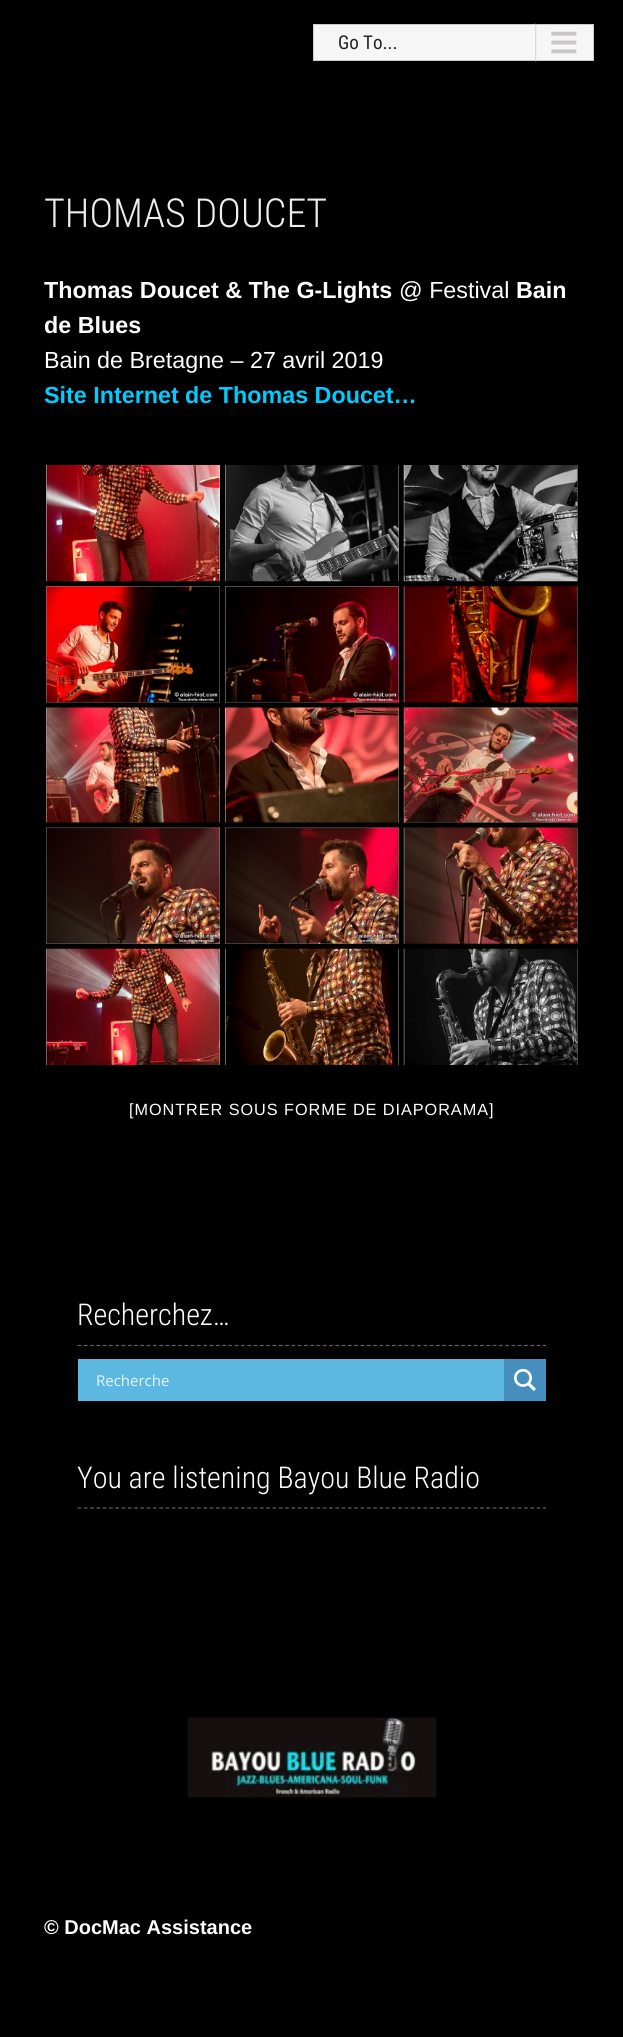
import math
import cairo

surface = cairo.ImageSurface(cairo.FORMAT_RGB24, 623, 2037)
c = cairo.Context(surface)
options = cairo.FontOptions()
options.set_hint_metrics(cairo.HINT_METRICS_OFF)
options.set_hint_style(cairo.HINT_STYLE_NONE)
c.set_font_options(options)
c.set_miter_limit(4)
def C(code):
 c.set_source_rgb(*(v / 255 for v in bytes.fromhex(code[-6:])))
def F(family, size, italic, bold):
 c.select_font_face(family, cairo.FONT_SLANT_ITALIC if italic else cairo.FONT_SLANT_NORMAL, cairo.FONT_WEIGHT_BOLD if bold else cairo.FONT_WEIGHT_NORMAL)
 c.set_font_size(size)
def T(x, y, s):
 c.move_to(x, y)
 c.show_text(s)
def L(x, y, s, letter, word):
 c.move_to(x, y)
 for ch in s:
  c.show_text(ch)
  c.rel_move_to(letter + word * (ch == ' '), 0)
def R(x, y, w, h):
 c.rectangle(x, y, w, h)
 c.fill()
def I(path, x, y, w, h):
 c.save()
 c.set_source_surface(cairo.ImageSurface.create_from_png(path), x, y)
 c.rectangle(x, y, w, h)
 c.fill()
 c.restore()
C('000000')
c.paint()
C('f6f6f6')
R(314,25,279,35)
I('1.png',535,23,42,39)
c.rectangle(313.5,24.5,280,36)
C('cccccc')
c.set_line_width(1)
c.stroke()
F('Roboto Condensed',19,0,0)
C('242424')
T(338,49,'Go To...')
F('Roboto Condensed Light',40,0,0)
C('eeeded')
T(44,227,'THOMAS DOUCET')
F('Liberation Sans',23.3,0,1)
C('ffffff')
T(44,298,'Thomas Doucet & The G-Lights')
F('Liberation Sans',23.3,0,0)
T(399,298,'@ Festival')
F('Liberation Sans',23.3,0,1)
T(516,298,'Bain')
T(44,333,'de Blues')
F('Liberation Sans',23.3,0,0)
T(44,368,'Bain de Bretagne – 27 avril 2019')
F('Liberation Sans',23.3,0,1)
C('00ccff')
T(44,403,'Site Internet de Thomas Doucet…')
I('2.png',46,465,174,117)
I('3.png',225,465,174,117)
I('4.png',403,465,175,117)
I('5.png',46,586,174,117)
I('6.png',225,586,174,117)
I('7.png',403,586,175,117)
I('8.png',46,707,174,116)
I('9.png',225,707,174,116)
I('10.png',403,707,175,116)
I('11.png',46,827,174,117)
I('12.png',225,827,174,117)
I('13.png',403,827,175,117)
I('14.png',46,948,174,117)
I('15.png',225,948,174,117)
I('16.png',403,948,175,117)
F('Liberation Sans',16.25,0,0)
C('ffffff')
L(129,1115,'[MONTRER SOUS FORME DE DIAPORAMA]',.95,0)
c.new_path()
c.move_to(77.5,1345.5)
c.line_to(546,1345.5)
C('606266')
c.set_line_width(1.2)
c.set_dash([3.75,2.54])
c.stroke()
F('Roboto Condensed Light',30,0,0)
C('ffffff')
T(77,1325,'Recherchez…')
C('5cb7e1')
R(78,1359,426,42)
F('Open Sans',15,0,0)
C('e7f4fb')
T(96,1386,'Recherche')
C('468ebe')
R(504,1359,42,42)
I('17.png',514,1369,22,22)
c.new_path()
c.move_to(77.5,1508)
c.line_to(546,1508)
C('606266')
c.stroke()
F('Roboto Condensed Light',30,0,0)
C('ffffff')
T(77,1488,'You are listening Bayou Blue Radio')
I('18.png',187,1717,250,81)
F('Liberation Sans',20,0,1)
T(44,1934,'© DocMac Assistance')
surface.write_to_png('o.png')
